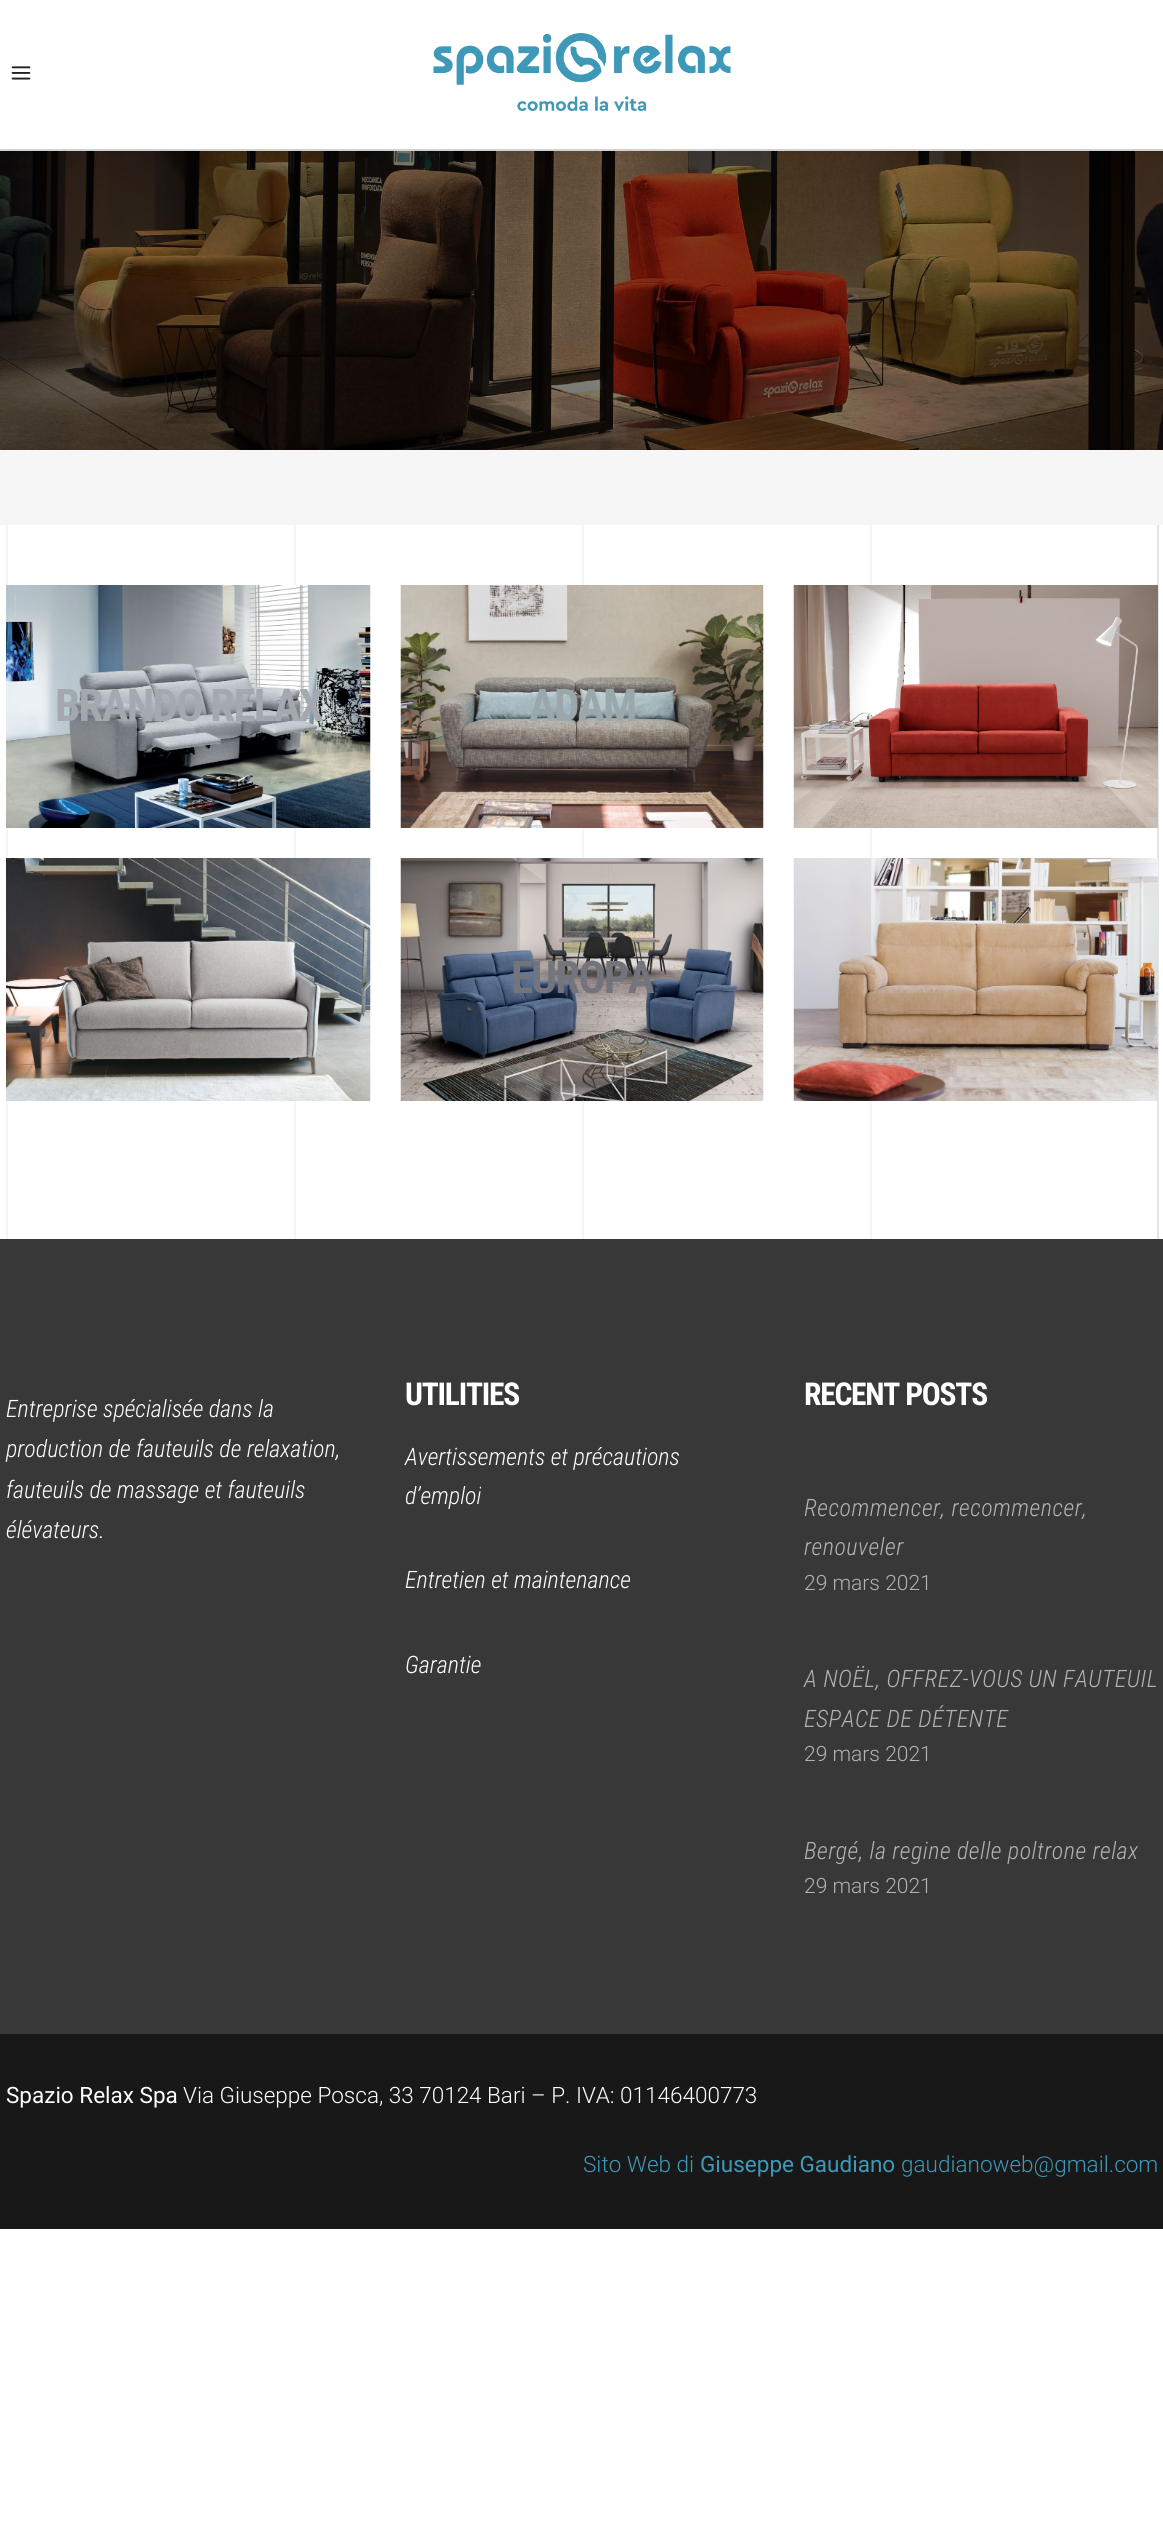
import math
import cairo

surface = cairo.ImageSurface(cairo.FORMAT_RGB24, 1163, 2541)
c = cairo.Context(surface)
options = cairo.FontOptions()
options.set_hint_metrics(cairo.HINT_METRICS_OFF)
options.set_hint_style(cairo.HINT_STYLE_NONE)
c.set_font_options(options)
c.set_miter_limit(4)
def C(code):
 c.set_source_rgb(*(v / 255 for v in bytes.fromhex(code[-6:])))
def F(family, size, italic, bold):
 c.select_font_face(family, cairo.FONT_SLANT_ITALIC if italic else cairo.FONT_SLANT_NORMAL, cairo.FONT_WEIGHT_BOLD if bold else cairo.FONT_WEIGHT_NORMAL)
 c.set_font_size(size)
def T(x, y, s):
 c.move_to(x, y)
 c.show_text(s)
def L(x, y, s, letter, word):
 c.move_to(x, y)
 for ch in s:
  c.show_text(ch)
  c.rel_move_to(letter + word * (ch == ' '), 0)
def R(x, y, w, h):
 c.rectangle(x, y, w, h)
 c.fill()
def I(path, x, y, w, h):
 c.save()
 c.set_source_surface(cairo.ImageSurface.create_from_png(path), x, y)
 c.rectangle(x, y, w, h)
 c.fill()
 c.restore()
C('ffffff')
c.paint()
C('d2d2d2')
R(0,149,1163,2)
I('1.png',11,66,20,14)
I('2.png',433,33,298,78)
C('f6f6f6')
R(0,450,1163,75)
I('3.png',0,151,1163,299)
C('f4f5fa')
R(6,525,2,714)
R(294,525,2,714)
R(582,525,2,714)
C('e5e5e5')
R(1157,525,2,714)
C('f4f5fa')
R(870,525,2,714)
I('4.png',6,585,365,243)
F('Roboto Condensed',45,0,1)
C('a3a9af')
L(55,721,'BRANDO RELAX',-1.75,0)
I('5.png',400,585,364,243)
C('9aa7ab')
L(529,721,'ADAM',-1.75,0)
I('6.png',793,585,365,243)
I('7.png',6,858,365,243)
I('8.png',400,858,364,243)
C('74747d')
L(511,993,'EUROPA',-1.75,0)
I('9.png',793,858,365,243)
C('383838')
R(0,1239,1163,795)
F('Roboto Condensed Light',24,1,0)
C('ffffff')
T(6,1417,'Entreprise spécialisée dans la')
T(6,1457,'production de fauteuils de relaxation,')
T(6,1498,'fauteuils de massage et fauteuils')
T(6,1538,'élévateurs.')
F('Roboto Condensed',31.5,0,1)
L(405,1405,'UTILITIES',-1.25,0)
F('Roboto Condensed Light',24,1,0)
T(405,1465,'Avertissements et précautions')
T(405,1504,'d’emploi')
T(405,1588,'Entretien et maintenance')
T(405,1673,'Garantie')
F('Roboto Condensed',31.5,0,1)
L(804,1405,'RECENT POSTS',-1.25,0)
F('Roboto Condensed Light',24,1,0)
C('b1b2b2')
L(804,1516,'Recommencer, recommencer,',.5,0)
L(804,1555,'renouveler',.5,0)
F('Roboto Light',21,0,0)
T(804,1590,'29 mars 2021')
F('Roboto Condensed Light',24,1,0)
L(804,1687,'A NOËL, OFFREZ-VOUS UN FAUTEUIL',.5,0)
L(804,1727,'ESPACE DE DÉTENTE',.5,0)
F('Roboto Light',21,0,0)
T(804,1761,'29 mars 2021')
F('Roboto Condensed Light',24,1,0)
L(804,1859,'Bergé, la regine delle poltrone relax',.5,0)
F('Roboto Light',21,0,0)
T(804,1893,'29 mars 2021')
C('181818')
R(0,2034,1163,195)
F('Roboto',22.5,0,0)
C('ffffff')
T(6,2103,'Spazio Relax Spa')
F('Roboto Light',22.5,0,0)
T(183,2103,'Via Giuseppe Posca, 33 70124 Bari – P. IVA: 01146400773')
C('3e98b7')
T(583,2172,'Sito Web di')
F('Roboto',22.5,0,0)
T(700,2172,'Giuseppe Gaudiano')
F('Roboto Light',22.5,0,0)
T(901,2172,'gaudianoweb@gmail.com')
surface.write_to_png('o.png')
